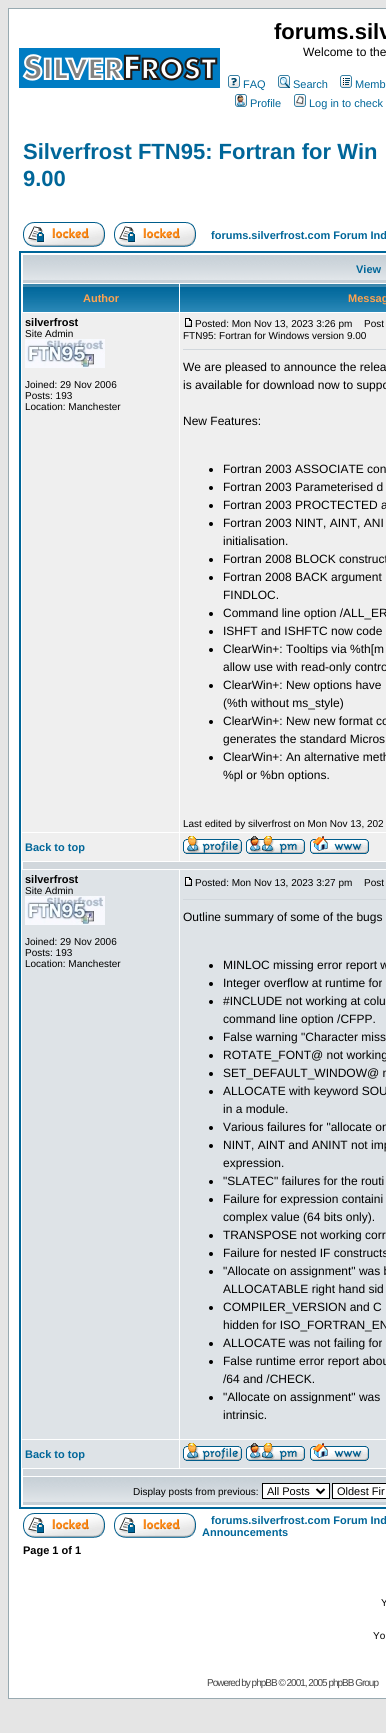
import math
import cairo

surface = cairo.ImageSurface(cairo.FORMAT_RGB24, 386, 1733)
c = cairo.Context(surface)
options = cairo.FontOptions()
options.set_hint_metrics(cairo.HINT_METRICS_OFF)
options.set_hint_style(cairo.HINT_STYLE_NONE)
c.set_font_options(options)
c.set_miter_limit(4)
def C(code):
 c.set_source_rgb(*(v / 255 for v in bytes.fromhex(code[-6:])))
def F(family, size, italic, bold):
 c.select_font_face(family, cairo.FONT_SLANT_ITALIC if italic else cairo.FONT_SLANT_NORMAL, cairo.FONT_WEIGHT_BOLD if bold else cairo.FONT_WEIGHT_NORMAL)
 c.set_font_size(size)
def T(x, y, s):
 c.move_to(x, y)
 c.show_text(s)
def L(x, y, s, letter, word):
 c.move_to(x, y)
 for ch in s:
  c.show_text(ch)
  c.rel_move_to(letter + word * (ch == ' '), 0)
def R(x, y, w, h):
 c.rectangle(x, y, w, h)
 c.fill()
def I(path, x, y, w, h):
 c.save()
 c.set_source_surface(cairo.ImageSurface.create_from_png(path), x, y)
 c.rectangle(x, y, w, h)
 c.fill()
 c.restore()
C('e5e5e5')
c.paint()
C('ffffff')
c.rectangle(8.5,8.5,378,1690)
c.fill_preserve()
C('98aab1')
c.set_line_width(1)
c.stroke()
I('1.png',19,48,201,40)
F('Liberation Sans',22,0,1)
C('000000')
T(274,39,'forums.silv')
F('Liberation Sans',12,0,0)
T(303,56,'Welcome to the')
I('2.png',228,75,12,13)
F('Liberation Sans',11,0,0)
C('006699')
T(243,88,'FAQ')
I('3.png',278,75,12,13)
T(293,88,'Search')
I('4.png',340,75,12,13)
T(355,88,'Memb')
I('5.png',235,94,12,13)
T(250,107,'Profile')
I('6.png',294,94,12,13)
T(309,107,'Log in to check')
F('Liberation Sans',22,0,1)
T(23,159,'Silverfrost FTN95: Fortran for Win')
T(23,186,'9.00')
I('7.png',23,222,82,25)
I('7.png',114,222,82,25)
F('Liberation Sans',11,0,1)
T(211,239,'forums.silverfrost.com Forum Ind')
c.rectangle(20,252,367,1256)
c.set_line_width(2)
c.stroke()
I('8.png',23,255,363,28)
T(356,273,'View')
I('9.png',23,284,156,28)
C('ffa34f')
T(83,302,'Author')
I('10.png',180,284,206,28)
T(348,302,'Messag')
C('efefef')
R(22,313,157,519)
C('000000')
T(25,326,'silverfrost')
F('Liberation Sans',10,0,0)
T(25,337,'Site Admin')
I('11.png',25,339,80,29)
T(25,388,'Joined: 29 Nov 2006')
T(25,399,'Posts: 193')
T(25,410,'Location: Manchester')
C('efefef')
R(180,313,206,519)
I('12.png',185,318,7,9)
C('000000')
T(195,327,'Posted: Mon Nov 13, 2023 3:26 pm')
T(364,327,'Post')
T(183,339,'FTN95: Fortran for Windows version 9.00')
C('d1d7dc')
R(183,349,203,1)
F('Liberation Sans',12,0,0)
C('000000')
T(183,371,'We are pleased to announce the relea')
T(183,389,'is available for download now to suppo')
T(183,425,'New Features:')
c.new_path()
c.arc(211,470,2,0,2 * math.pi)
c.fill()
T(223,473,'Fortran 2003 ASSOCIATE con')
c.new_path()
c.arc(211,488,2,0,2 * math.pi)
c.fill()
T(223,491,'Fortran 2003 Parameterised d')
c.new_path()
c.arc(211,506,2,0,2 * math.pi)
c.fill()
T(223,509,'Fortran 2003 PROCTECTED a')
c.new_path()
c.arc(211,524,2,0,2 * math.pi)
c.fill()
T(223,527,'Fortran 2003 NINT, AINT, ANI')
T(223,545,'initialisation.')
c.new_path()
c.arc(211,560,2,0,2 * math.pi)
c.fill()
T(223,563,'Fortran 2008 BLOCK construct')
c.new_path()
c.arc(211,578,2,0,2 * math.pi)
c.fill()
T(223,581,'Fortran 2008 BACK argument')
T(223,599,'FINDLOC.')
c.new_path()
c.arc(211,614,2,0,2 * math.pi)
c.fill()
T(223,617,'Command line option /ALL_ER')
c.new_path()
c.arc(211,632,2,0,2 * math.pi)
c.fill()
T(223,635,'ISHFT and ISHFTC now code')
c.new_path()
c.arc(211,650,2,0,2 * math.pi)
c.fill()
T(223,653,'ClearWin+: Tooltips via %th[m')
T(223,671,'allow use with read-only contro')
c.new_path()
c.arc(211,686,2,0,2 * math.pi)
c.fill()
T(223,689,'ClearWin+: New options have')
T(223,707,'(%th without ms_style)')
c.new_path()
c.arc(211,722,2,0,2 * math.pi)
c.fill()
T(223,725,'ClearWin+: New new format co')
T(223,743,'generates the standard Micros')
c.new_path()
c.arc(211,758,2,0,2 * math.pi)
c.fill()
T(223,761,'ClearWin+: An alternative meth')
T(223,779,'%pl or %bn options.')
F('Liberation Sans',10,0,0)
T(183,827,'Last edited by silverfrost on Mon Nov 13, 202')
C('efefef')
R(22,833,157,28)
F('Liberation Sans',11,0,1)
C('006699')
T(25,851,'Back to top')
C('efefef')
R(180,833,206,28)
I('13.png',183,836,59,18)
I('14.png',246,836,59,18)
I('15.png',310,836,59,18)
C('d1d7dc')
R(23,862,363,7)
C('dee3e7')
R(22,870,157,569)
C('000000')
T(25,883,'silverfrost')
F('Liberation Sans',10,0,0)
T(25,894,'Site Admin')
I('11.png',25,896,80,29)
T(25,945,'Joined: 29 Nov 2006')
T(25,956,'Posts: 193')
T(25,967,'Location: Manchester')
C('dee3e7')
R(180,870,206,569)
I('16.png',185,877,7,9)
C('000000')
T(195,886,'Posted: Mon Nov 13, 2023 3:27 pm')
T(364,886,'Post')
C('d1d7dc')
R(183,899,203,1)
F('Liberation Sans',12,0,0)
C('000000')
T(183,921,'Outline summary of some of the bugs')
c.new_path()
c.arc(211,966,2,0,2 * math.pi)
c.fill()
T(223,969,'MINLOC missing error report w')
c.new_path()
c.arc(211,984,2,0,2 * math.pi)
c.fill()
T(223,987,'Integer overflow at runtime for')
c.new_path()
c.arc(211,1002,2,0,2 * math.pi)
c.fill()
T(223,1005,'#INCLUDE not working at colu')
T(223,1023,'command line option /CFPP.')
c.new_path()
c.arc(211,1038,2,0,2 * math.pi)
c.fill()
T(223,1041,'False warning "Character miss')
c.new_path()
c.arc(211,1056,2,0,2 * math.pi)
c.fill()
T(223,1059,'ROTATE_FONT@ not working')
c.new_path()
c.arc(211,1074,2,0,2 * math.pi)
c.fill()
T(223,1077,'SET_DEFAULT_WINDOW@ n')
c.new_path()
c.arc(211,1092,2,0,2 * math.pi)
c.fill()
T(223,1095,'ALLOCATE with keyword SOU')
T(223,1113,'in a module.')
c.new_path()
c.arc(211,1128,2,0,2 * math.pi)
c.fill()
T(223,1131,'Various failures for "allocate on')
c.new_path()
c.arc(211,1146,2,0,2 * math.pi)
c.fill()
T(223,1149,'NINT, AINT and ANINT not imp')
T(223,1167,'expression.')
c.new_path()
c.arc(211,1182,2,0,2 * math.pi)
c.fill()
T(223,1185,'"SLATEC" failures for the routi')
c.new_path()
c.arc(211,1200,2,0,2 * math.pi)
c.fill()
T(223,1203,'Failure for expression containi')
T(223,1221,'complex value (64 bits only).')
c.new_path()
c.arc(211,1236,2,0,2 * math.pi)
c.fill()
T(223,1239,'TRANSPOSE not working corr')
c.new_path()
c.arc(211,1254,2,0,2 * math.pi)
c.fill()
T(223,1257,'Failure for nested IF constructs')
c.new_path()
c.arc(211,1272,2,0,2 * math.pi)
c.fill()
T(223,1275,'"Allocate on assignment" was b')
T(223,1293,'ALLOCATABLE right hand sid')
c.new_path()
c.arc(211,1308,2,0,2 * math.pi)
c.fill()
T(223,1311,'COMPILER_VERSION and C')
T(223,1329,'hidden for ISO_FORTRAN_EN')
c.new_path()
c.arc(211,1344,2,0,2 * math.pi)
c.fill()
T(223,1347,'ALLOCATE was not failing for')
c.new_path()
c.arc(211,1362,2,0,2 * math.pi)
c.fill()
T(223,1365,'False runtime error report abou')
T(223,1383,'/64 and /CHECK.')
c.new_path()
c.arc(211,1398,2,0,2 * math.pi)
c.fill()
T(223,1401,'"Allocate on assignment" was')
T(223,1419,'intrinsic.')
C('dee3e7')
R(22,1440,157,28)
F('Liberation Sans',11,0,1)
C('006699')
T(25,1458,'Back to top')
C('dee3e7')
R(180,1440,206,28)
I('17.png',183,1443,59,18)
I('18.png',246,1443,59,18)
I('19.png',310,1443,59,18)
C('d1d7dc')
R(23,1469,363,7)
I('8.png',23,1477,363,28)
F('Liberation Sans',10,0,0)
C('000000')
T(133,1495,'Display posts from previous:')
C('ffffff')
c.rectangle(262.5,1483.5,67,15)
c.fill_preserve()
C('000000')
c.set_line_width(1)
c.stroke()
c.new_path()
c.move_to(316.5,1489)
c.line_to(320.5,1493)
c.line_to(324.5,1489)
c.set_line_width(2)
c.stroke()
F('Liberation Sans',11,0,0)
T(267,1495,'All Posts')
C('ffffff')
c.rectangle(332.5,1483.5,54,15)
c.fill_preserve()
C('000000')
c.set_line_width(1)
c.stroke()
T(337,1495,'Oldest Fir')
I('7.png',23,1513,82,25)
I('7.png',114,1513,82,25)
F('Liberation Sans',11,0,1)
C('006699')
T(211,1524,'forums.silverfrost.com Forum Ind')
T(202,1536,'Announcements')
C('000000')
T(23,1554,'Page 1 of 1')
F('Liberation Sans',10,0,0)
T(381,1606,'Y')
T(373,1639,'Yo')
C('444444')
L(207,1686,'Powered by phpBB © 2001, 2005 phpBB Group',-1,0)
surface.write_to_png('o.png')
